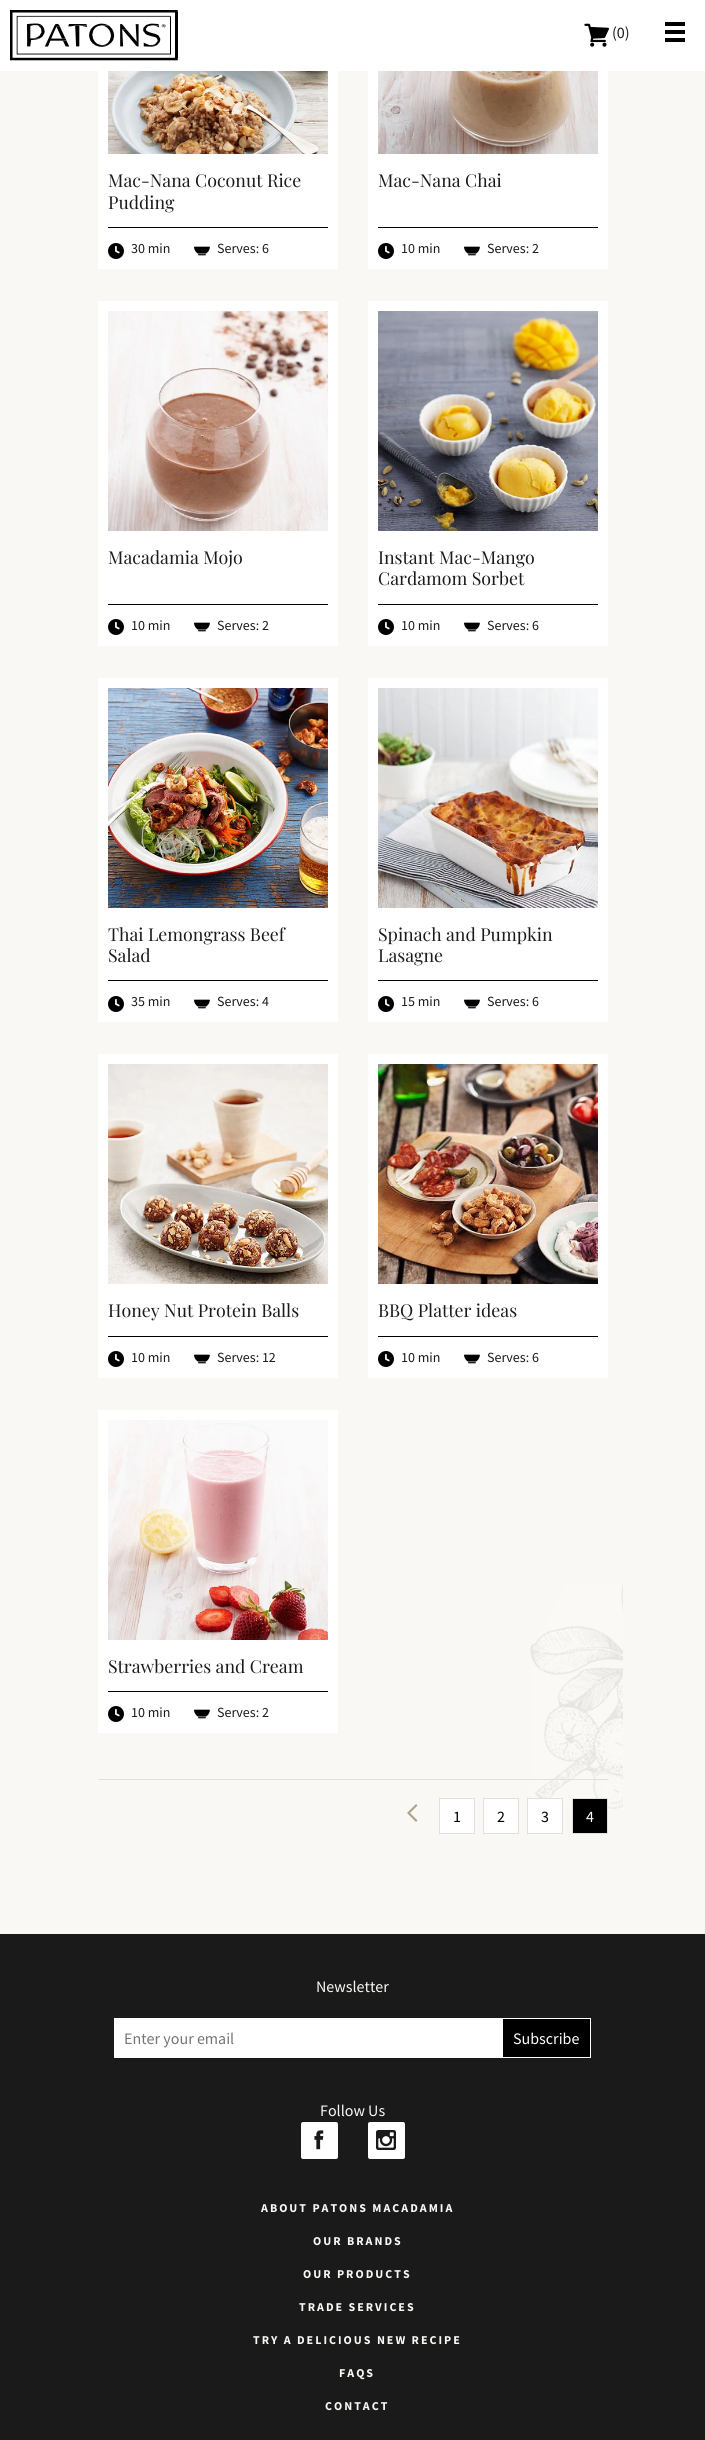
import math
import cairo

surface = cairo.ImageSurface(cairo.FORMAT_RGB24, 705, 2440)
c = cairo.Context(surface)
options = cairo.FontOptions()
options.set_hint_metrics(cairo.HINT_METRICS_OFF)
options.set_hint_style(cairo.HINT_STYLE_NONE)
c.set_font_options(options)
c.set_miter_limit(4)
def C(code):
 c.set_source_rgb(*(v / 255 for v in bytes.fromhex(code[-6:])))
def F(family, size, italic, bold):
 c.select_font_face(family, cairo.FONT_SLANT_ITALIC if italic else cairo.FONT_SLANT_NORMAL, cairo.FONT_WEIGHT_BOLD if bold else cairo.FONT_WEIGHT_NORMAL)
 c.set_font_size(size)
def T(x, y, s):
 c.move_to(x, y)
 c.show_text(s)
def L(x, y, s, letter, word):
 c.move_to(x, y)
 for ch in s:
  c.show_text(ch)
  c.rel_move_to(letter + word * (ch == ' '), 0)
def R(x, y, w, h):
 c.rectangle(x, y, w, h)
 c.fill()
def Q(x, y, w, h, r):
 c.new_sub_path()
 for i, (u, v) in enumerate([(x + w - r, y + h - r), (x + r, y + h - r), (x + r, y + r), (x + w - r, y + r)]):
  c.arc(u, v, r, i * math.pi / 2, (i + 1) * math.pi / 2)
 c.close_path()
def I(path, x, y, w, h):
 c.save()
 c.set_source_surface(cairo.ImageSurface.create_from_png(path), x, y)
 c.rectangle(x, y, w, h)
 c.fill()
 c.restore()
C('faf8f5')
c.paint()
C('ffffff')
R(0,0,705,71)
I('1.png',10,10,168,51)
I('2.png',584,23,25,24)
F('Source Sans Pro',16,0,0)
C('1a1a1a')
T(612,38,'(0)')
C('000000')
R(665,22,20,4)
R(665,30,20,4)
R(665,38,20,4)
C('ffffff')
R(98,71,240,198)
I('3.png',108,71,220,83)
F('Playfair Display',17.75,0,0)
C('1a1a1a')
T(108,187,'Mac-Nana Coconut Rice')
T(108,209,'Pudding')
C('000000')
R(108,227,220,1)
I('4.png',108,243,16,16)
F('Source Sans Pro',14,0,0)
C('1a1a1a')
T(131,253,'30 min')
I('5.png',194,246,16,10)
T(217,253,'Serves: 6')
C('ffffff')
R(368,71,240,198)
I('6.png',378,71,220,83)
F('Playfair Display',17.75,0,0)
C('1a1a1a')
T(378,187,'Mac-Nana Chai')
C('000000')
R(378,227,220,1)
I('4.png',378,243,16,16)
F('Source Sans Pro',14,0,0)
C('1a1a1a')
T(401,253,'10 min')
I('5.png',464,246,16,10)
T(487,253,'Serves: 2')
C('ffffff')
R(98,301,240,345)
I('7.png',108,311,220,220)
F('Playfair Display',17.75,0,0)
C('1a1a1a')
T(108,564,'Macadamia Mojo')
C('000000')
R(108,604,220,1)
I('4.png',108,619,16,16)
F('Source Sans Pro',14,0,0)
C('1a1a1a')
T(131,630,'10 min')
I('5.png',194,622,16,10)
T(217,630,'Serves: 2')
C('ffffff')
R(368,301,240,345)
I('8.png',378,311,220,220)
F('Playfair Display',17.75,0,0)
C('1a1a1a')
T(378,564,'Instant Mac-Mango')
T(378,585,'Cardamom Sorbet')
C('000000')
R(378,604,220,1)
I('4.png',378,619,16,16)
F('Source Sans Pro',14,0,0)
C('1a1a1a')
T(401,630,'10 min')
I('5.png',464,622,16,10)
T(487,630,'Serves: 6')
C('ffffff')
R(98,678,240,344)
I('9.png',108,688,220,220)
F('Playfair Display',17.75,0,0)
C('1a1a1a')
T(108,941,'Thai Lemongrass Beef')
T(108,962,'Salad')
C('000000')
R(108,980,220,1)
I('4.png',108,996,16,16)
F('Source Sans Pro',14,0,0)
C('1a1a1a')
T(131,1006,'35 min')
I('5.png',194,999,16,10)
T(217,1006,'Serves: 4')
C('ffffff')
R(368,678,240,344)
I('10.png',378,688,220,220)
F('Playfair Display',17.75,0,0)
C('1a1a1a')
T(378,941,'Spinach and Pumpkin')
T(378,962,'Lasagne')
C('000000')
R(378,980,220,1)
I('4.png',378,996,16,16)
F('Source Sans Pro',14,0,0)
C('1a1a1a')
T(401,1006,'15 min')
I('5.png',464,999,16,10)
T(487,1006,'Serves: 6')
C('ffffff')
R(98,1054,240,324)
I('11.png',108,1064,220,220)
F('Playfair Display',17.75,0,0)
C('1a1a1a')
T(108,1317,'Honey Nut Protein Balls')
C('000000')
R(108,1336,220,1)
I('4.png',108,1351,16,16)
F('Source Sans Pro',14,0,0)
C('1a1a1a')
T(131,1362,'10 min')
I('5.png',194,1354,16,10)
T(217,1362,'Serves: 12')
C('ffffff')
R(368,1054,240,324)
I('12.png',378,1064,220,220)
F('Playfair Display',17.75,0,0)
C('1a1a1a')
T(378,1317,'BBQ Platter ideas')
C('000000')
R(378,1336,220,1)
I('4.png',378,1351,16,16)
F('Source Sans Pro',14,0,0)
C('1a1a1a')
T(401,1362,'10 min')
I('5.png',464,1354,16,10)
T(487,1362,'Serves: 6')
C('ffffff')
R(98,1410,240,323)
I('13.png',108,1420,220,220)
F('Playfair Display',17.75,0,0)
C('1a1a1a')
T(108,1673,'Strawberries and Cream')
C('000000')
R(108,1691,220,1)
I('4.png',108,1706,16,16)
F('Source Sans Pro',14,0,0)
C('1a1a1a')
T(131,1717,'10 min')
I('5.png',194,1709,16,10)
T(217,1717,'Serves: 2')
I('14.png',530,1583,93,226)
C('e2e0de')
R(98,1779,510,1)
C('aca28a')
c.set_fill_rule(cairo.FILL_RULE_EVEN_ODD)
c.new_path()
c.move_to(410,1813)
c.line_to(417.5,1820.5)
c.line_to(416,1822)
c.line_to(407,1813)
c.line_to(416,1804)
c.line_to(417.5,1805.5)
c.close_path()
c.fill()
C('ffffff')
c.rectangle(439.5,1798.5,35,35)
c.fill_preserve()
C('e2e0de')
c.set_line_width(1)
c.stroke()
F('Source Sans Pro',16,0,0)
C('000000')
T(453,1822,'1')
C('ffffff')
c.rectangle(483.5,1798.5,35,35)
c.fill_preserve()
C('e2e0de')
c.stroke()
C('000000')
T(497,1822,'2')
C('ffffff')
c.rectangle(527.5,1798.5,35,35)
c.fill_preserve()
C('e2e0de')
c.stroke()
C('000000')
T(541,1822,'3')
c.rectangle(572.5,1798.5,35,35)
c.fill_preserve()
C('e2e0de')
c.stroke()
C('ffffff')
T(586,1822,'4')
C('1a1a1a')
R(0,1934,705,506)
C('faf8f5')
T(316,1992,'Newsletter')
C('ffffff')
R(114,2018,388,40)
C('757575')
T(124,2044,'Enter your email')
C('000000')
c.rectangle(502.5,2018.5,88,39)
c.fill_preserve()
C('ffffff')
c.stroke()
T(513,2044,'Subscribe')
C('faf8f5')
T(320,2116,'Follow Us')
C('ffffff')
Q(301,2122,37,37,2)
c.fill()
I('15.png',314,2130,10,20)
Q(368,2122,37,37,2)
c.fill()
I('16.png',376,2130,20,20)
F('Source Sans Pro',12,0,1)
C('faf8f5')
L(261,2212,'ABOUT PATONS MACADAMIA',2,0)
L(313,2245,'OUR BRANDS',2,0)
L(303,2278,'OUR PRODUCTS',2,0)
L(299,2311,'TRADE SERVICES',2,0)
L(253,2344,'TRY A DELICIOUS NEW RECIPE',2,0)
L(339,2377,'FAQS',2,0)
L(325,2410,'CONTACT',2,0)
surface.write_to_png('o.png')
